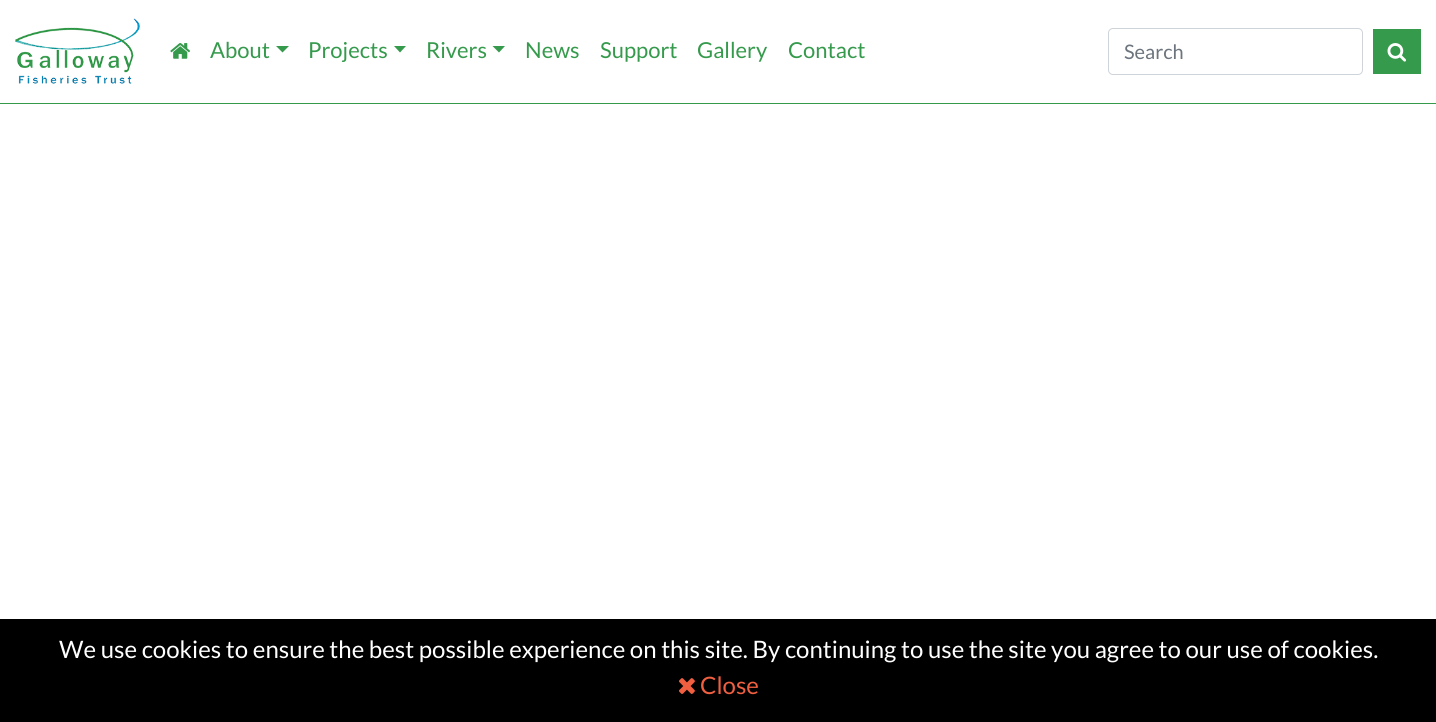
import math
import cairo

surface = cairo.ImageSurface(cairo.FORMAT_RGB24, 1436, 722)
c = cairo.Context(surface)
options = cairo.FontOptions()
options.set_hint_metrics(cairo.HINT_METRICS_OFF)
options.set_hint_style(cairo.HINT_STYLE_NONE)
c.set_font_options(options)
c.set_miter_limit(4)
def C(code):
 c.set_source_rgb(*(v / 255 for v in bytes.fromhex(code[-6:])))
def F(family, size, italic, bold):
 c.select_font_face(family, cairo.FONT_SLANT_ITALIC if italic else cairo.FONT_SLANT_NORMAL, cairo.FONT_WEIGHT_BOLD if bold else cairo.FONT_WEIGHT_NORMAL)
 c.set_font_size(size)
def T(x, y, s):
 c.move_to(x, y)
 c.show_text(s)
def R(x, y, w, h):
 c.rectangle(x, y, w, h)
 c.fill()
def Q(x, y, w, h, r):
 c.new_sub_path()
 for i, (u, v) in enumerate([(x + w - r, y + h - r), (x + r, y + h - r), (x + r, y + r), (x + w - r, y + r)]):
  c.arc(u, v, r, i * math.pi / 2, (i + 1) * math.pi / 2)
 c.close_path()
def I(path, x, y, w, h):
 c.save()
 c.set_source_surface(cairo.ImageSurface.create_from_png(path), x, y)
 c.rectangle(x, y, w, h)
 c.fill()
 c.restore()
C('ffffff')
c.paint()
C('359a4c')
R(0,103,1436,1)
I('1.png',15,18,125,66)
I('2.png',170,43,20,16)
F('Lato',22,0,0)
T(210,58,'About')
c.new_path()
c.move_to(276,46)
c.line_to(289,46)
c.line_to(282.5,52.5)
c.close_path()
c.fill()
T(308,58,'Projects')
c.new_path()
c.move_to(394,46)
c.line_to(406,46)
c.line_to(400,52.5)
c.close_path()
c.fill()
T(426,58,'Rivers')
c.new_path()
c.move_to(492.5,46)
c.line_to(505,46)
c.line_to(499,52.5)
c.close_path()
c.fill()
T(525,58,'News')
T(600,58,'Support')
T(697,58,'Gallery')
T(788,58,'Contact')
Q(1108.5,28.5,254,46,4.5)
C('ced4da')
c.set_line_width(1)
c.stroke()
F('Lato',20,0,0)
C('6c757d')
T(1124,59,'Search')
C('359a4c')
R(1373,29,48,45)
I('3.png',1387,43,20,19)
C('000000')
R(0,619,1436,103)
F('Lato',24,0,0)
C('ffffff')
T(59,658,'We use cookies to ensure the best possible experience on this site. By continuing to use the site you agree to our use of cookies.')
I('4.png',679,678,16,16)
C('f05f40')
T(700,694,'Close')
surface.write_to_png('o.png')
